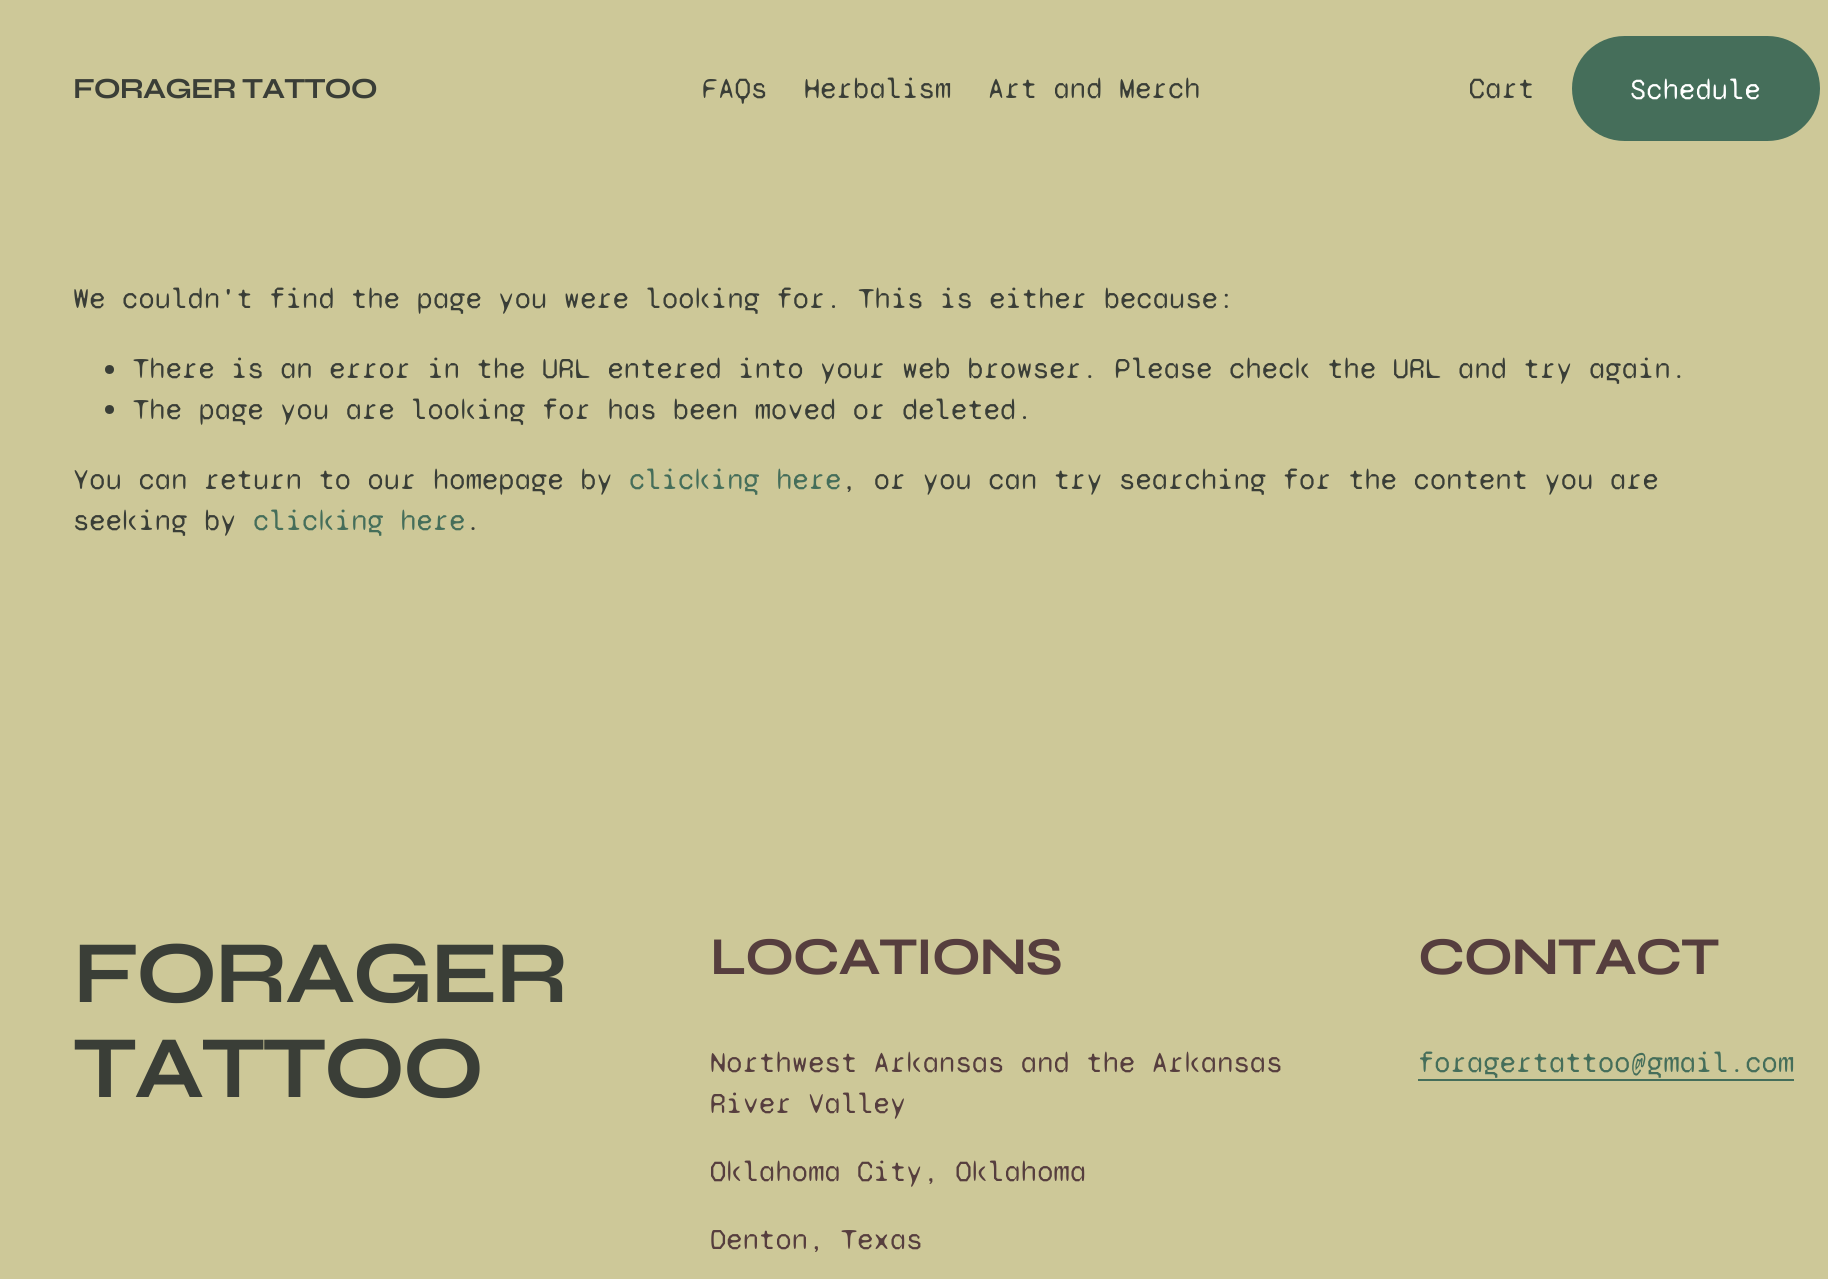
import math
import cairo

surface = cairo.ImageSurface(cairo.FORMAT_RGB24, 1828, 1279)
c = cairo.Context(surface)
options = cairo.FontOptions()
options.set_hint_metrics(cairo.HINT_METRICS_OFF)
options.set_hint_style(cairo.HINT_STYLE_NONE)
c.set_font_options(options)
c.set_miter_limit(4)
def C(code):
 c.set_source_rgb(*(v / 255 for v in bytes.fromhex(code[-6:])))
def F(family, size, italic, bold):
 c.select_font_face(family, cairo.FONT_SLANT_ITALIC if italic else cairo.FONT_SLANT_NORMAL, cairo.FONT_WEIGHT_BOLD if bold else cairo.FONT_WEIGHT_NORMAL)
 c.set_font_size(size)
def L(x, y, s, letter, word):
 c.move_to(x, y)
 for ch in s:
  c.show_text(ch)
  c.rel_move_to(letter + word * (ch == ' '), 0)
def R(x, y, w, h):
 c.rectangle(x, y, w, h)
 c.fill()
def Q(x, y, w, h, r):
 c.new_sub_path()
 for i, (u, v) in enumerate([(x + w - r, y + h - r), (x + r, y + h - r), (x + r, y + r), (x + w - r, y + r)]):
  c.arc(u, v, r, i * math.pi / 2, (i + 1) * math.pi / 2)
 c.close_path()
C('cdc898')
c.paint()
F('Syne',29.2,0,1)
C('3a3e37')
L(73,98,'FORAGER TATTOO',-.9,0)
F('Syne Mono',29.2,0,0)
L(702,98,'FAQs',.3,0)
L(804,98,'Herbalism',.3,0)
L(988,98,'Art and Merch',.3,0)
L(1469,98,'Cart',.3,0)
C('456e5a')
Q(1572,36,248,105,52.5)
c.fill()
C('ffffff')
L(1630,99,'Schedule',.3,0)
C('3a3e37')
L(73,308,'We couldn\'t find the page you were looking for. This is either because:',.3,0)
c.new_path()
c.arc(109.5,369.5,4.5,0,2 * math.pi)
c.fill()
L(133,378,'There is an error in the URL entered into your web browser. Please check the URL and try again.',.3,0)
c.new_path()
c.arc(109.5,409.5,4.5,0,2 * math.pi)
c.fill()
L(133,419,'The page you are looking for has been moved or deleted.',.3,0)
L(73,489,'You can return to our homepage by',.3,0)
C('456e5a')
L(629,489,'clicking here',.3,0)
C('3a3e37')
L(841,489,', or you can try searching for the content you are',.3,0)
L(73,530,'seeking by',.3,0)
C('456e5a')
L(253,530,'clicking here',.3,0)
C('3a3e37')
L(465,530,'.',.3,0)
F('Syne',88.5,0,1)
L(73,1002,'FORAGER',-2.75,0)
L(73,1097,'TATTOO',-2.75,0)
F('Syne',53.25,0,1)
C('563e3e')
L(710,974,'LOCATIONS',-1.5,0)
F('Syne Mono',29.2,0,0)
L(710,1072,'Northwest Arkansas and the Arkansas',.3,0)
L(710,1113,'River Valley',.3,0)
L(710,1181,'Oklahoma City, Oklahoma',.3,0)
L(710,1249,'Denton, Texas',.3,0)
F('Syne',53.25,0,1)
L(1418,974,'CONTACT',-1.5,0)
F('Syne Mono',29.2,0,0)
C('456e5a')
L(1418,1072,'foragertattoo@gmail.com',.3,0)
R(1418,1079,376,2)
surface.write_to_png('o.png')
